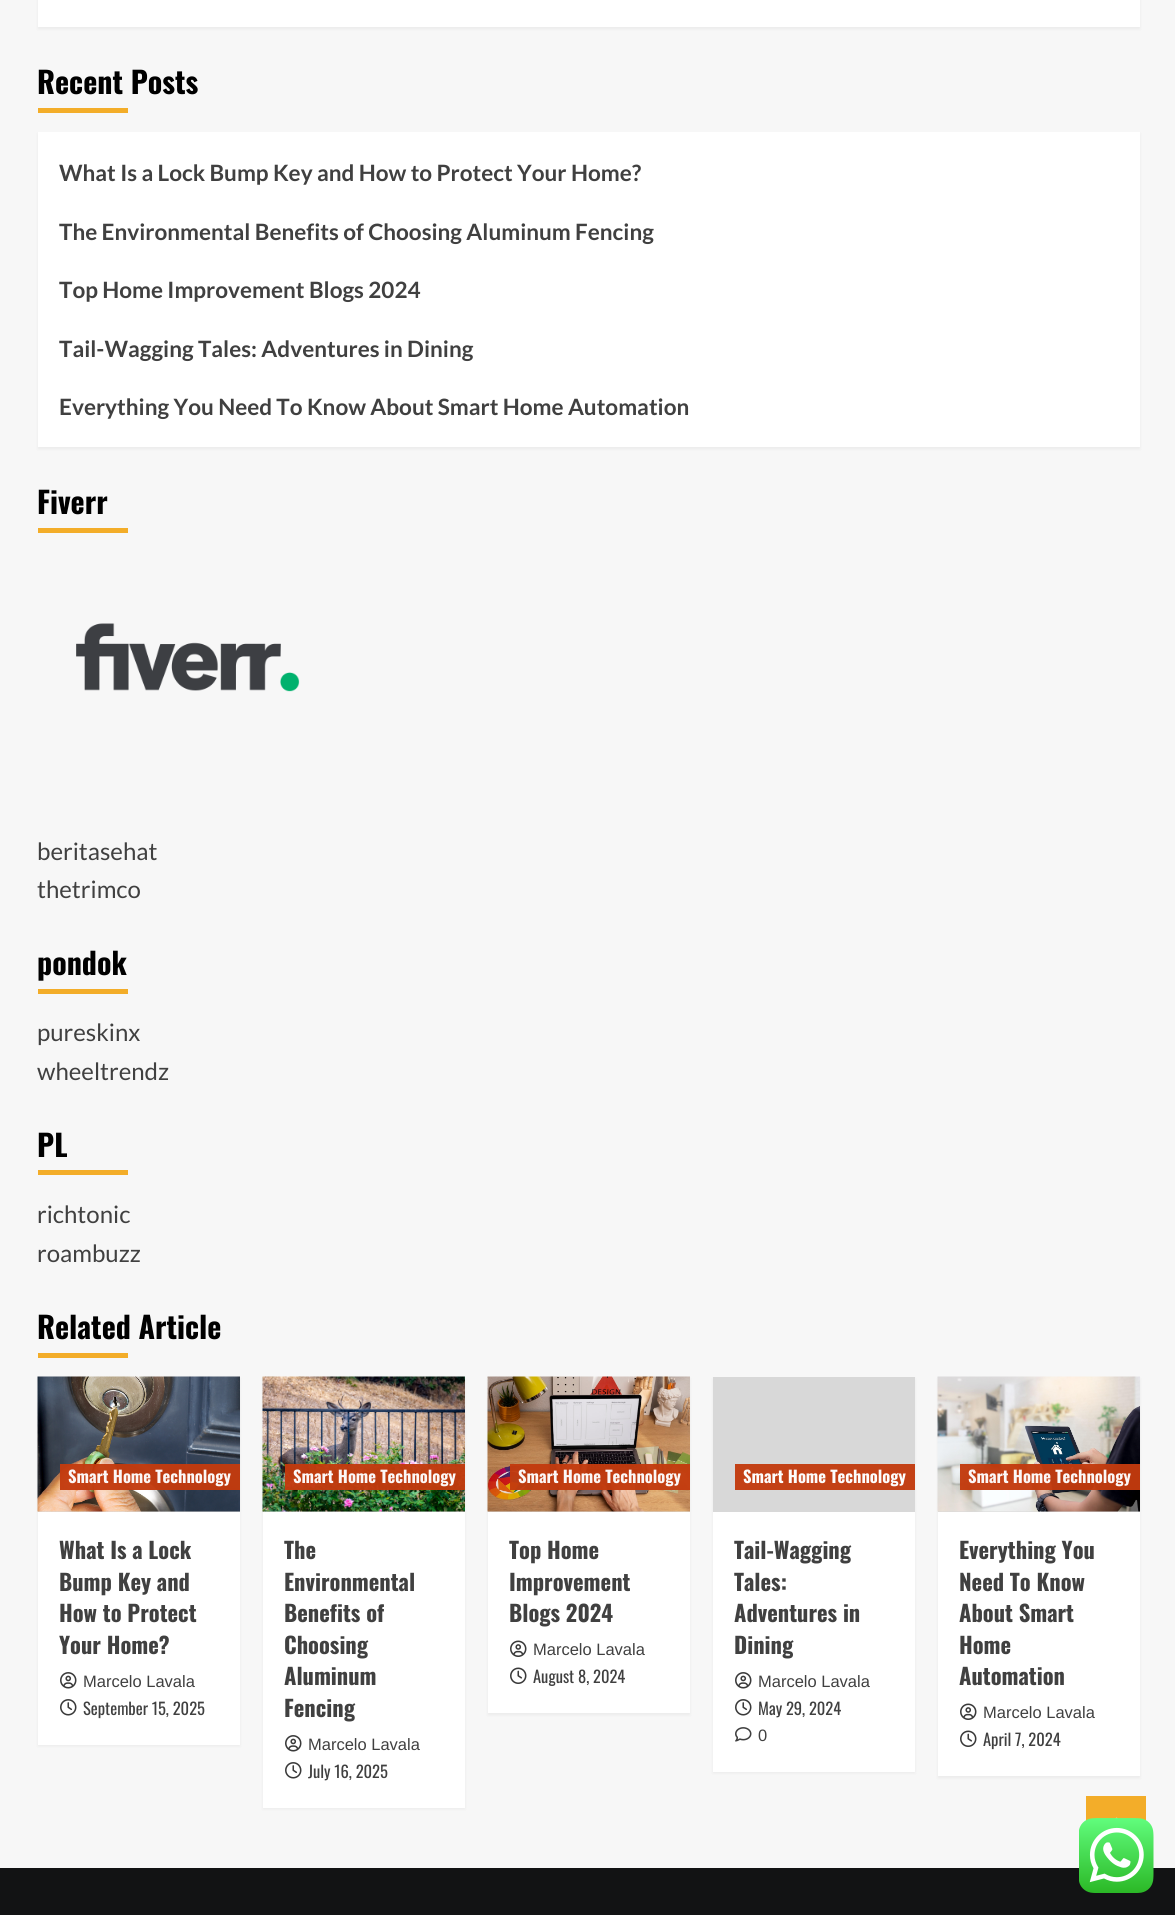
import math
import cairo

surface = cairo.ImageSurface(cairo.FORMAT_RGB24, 1175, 1915)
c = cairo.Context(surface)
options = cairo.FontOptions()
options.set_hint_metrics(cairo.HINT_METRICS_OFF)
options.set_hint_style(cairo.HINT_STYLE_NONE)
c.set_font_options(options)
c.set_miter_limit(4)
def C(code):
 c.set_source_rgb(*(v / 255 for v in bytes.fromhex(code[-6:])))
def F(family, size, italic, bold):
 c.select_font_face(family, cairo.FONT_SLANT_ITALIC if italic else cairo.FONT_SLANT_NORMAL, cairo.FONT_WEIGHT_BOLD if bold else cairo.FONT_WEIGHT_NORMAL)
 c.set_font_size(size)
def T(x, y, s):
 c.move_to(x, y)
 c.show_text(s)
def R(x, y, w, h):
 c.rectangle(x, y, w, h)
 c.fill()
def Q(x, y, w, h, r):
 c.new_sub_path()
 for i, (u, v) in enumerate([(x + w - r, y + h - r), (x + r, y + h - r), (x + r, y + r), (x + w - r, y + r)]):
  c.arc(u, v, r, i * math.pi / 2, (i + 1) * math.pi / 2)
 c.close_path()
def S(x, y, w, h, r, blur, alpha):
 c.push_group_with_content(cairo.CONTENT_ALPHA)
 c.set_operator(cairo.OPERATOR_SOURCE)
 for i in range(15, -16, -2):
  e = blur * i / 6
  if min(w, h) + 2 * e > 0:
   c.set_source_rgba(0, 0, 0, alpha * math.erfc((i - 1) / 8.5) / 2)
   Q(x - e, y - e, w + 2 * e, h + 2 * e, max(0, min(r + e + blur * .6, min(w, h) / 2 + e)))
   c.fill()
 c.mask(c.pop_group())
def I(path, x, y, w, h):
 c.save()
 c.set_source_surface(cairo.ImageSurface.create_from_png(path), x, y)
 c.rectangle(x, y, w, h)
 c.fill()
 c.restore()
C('f7f7f7')
c.paint()
C('000000')
S(38,-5,1102,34,0,1.5,.05)
C('ffffff')
R(38,0,1102,27)
F('Oswald',30,0,1)
C('000000')
T(37,94,'Recent Posts')
C('f3ad29')
R(38,108,90,5)
C('000000')
S(38,134,1102,315,0,1.5,.05)
C('ffffff')
R(38,132,1102,315)
F('Lato',22.5,0,1)
C('404040')
T(59,181,'What Is a Lock Bump Key and How to Protect Your Home?')
T(59,240,'The Environmental Benefits of Choosing Aluminum Fencing')
T(59,298,'Top Home Improvement Blogs 2024')
T(59,357,'Tail-Wagging Tales: Adventures in Dining')
T(59,415,'Everything You Need To Know About Smart Home Automation')
F('Oswald',30,0,1)
C('000000')
T(37,514,'Fiverr')
C('f3ad29')
R(38,528,90,5)
I('1.png',76,623,224,69)
F('Lato',24,0,0)
C('404040')
T(37,860,'beritasehat')
T(37,898,'thetrimco')
F('Oswald',30,0,1)
C('000000')
T(37,975,'pondok')
C('f3ad29')
R(38,989,90,5)
F('Lato',24,0,0)
C('404040')
T(37,1041,'pureskinx')
T(37,1080,'wheeltrendz')
F('Oswald',30,0,1)
C('000000')
T(37,1157,'PL')
C('f3ad29')
R(38,1170,90,5)
F('Lato',24,0,0)
C('404040')
T(37,1223,'richtonic')
T(37,1262,'roambuzz')
F('Oswald',30,0,1)
C('000000')
T(37,1339,'Related Article')
C('f3ad29')
R(38,1353,90,5)
C('000000')
S(38,1379,202,367,0,1.5,.05)
C('ffffff')
R(38,1512,202,233)
C('d8d8d8')
R(38,1511,202,1)
I('2.png',37,1376,203,136)
c.set_source_rgba(0.761,0.231,0.055,0.96)
R(60,1464,180,26)
F('Oswald',16.5,0,1)
C('fcf7f6')
T(68,1483,'Smart Home Technology')
F('Oswald',22.5,0,1)
C('404040')
T(59,1559,'What Is a Lock')
T(59,1591,'Bump Key and')
T(59,1622,'How to Protect')
T(59,1654,'Your Home?')
I('3.png',60,1672,17,17)
F('Liberation Sans',16.5,0,0)
T(83,1687,'Marcelo Lavala')
I('4.png',60,1699,17,17)
F('Oswald',16.5,0,0)
T(83,1715,'September 15, 2025')
C('000000')
S(263,1379,202,430,0,1.5,.05)
C('ffffff')
R(263,1512,202,296)
C('d8d8d8')
R(263,1511,202,1)
I('5.png',262,1376,203,136)
c.set_source_rgba(0.761,0.231,0.055,0.96)
R(285,1464,180,26)
F('Oswald',16.5,0,1)
C('fcf7f6')
T(293,1483,'Smart Home Technology')
F('Oswald',22.5,0,1)
C('404040')
T(284,1559,'The')
T(284,1591,'Environmental')
T(284,1622,'Benefits of')
T(284,1654,'Choosing')
T(284,1685,'Aluminum')
T(284,1717,'Fencing')
I('3.png',285,1735,17,17)
F('Liberation Sans',16.5,0,0)
T(308,1750,'Marcelo Lavala')
I('4.png',285,1762,17,17)
F('Oswald',16.5,0,0)
T(308,1778,'July 16, 2025')
C('000000')
S(488,1379,202,336,0,1.5,.05)
C('ffffff')
R(488,1512,202,201)
C('d8d8d8')
R(488,1511,202,1)
I('6.png',487,1376,203,136)
c.set_source_rgba(0.761,0.231,0.055,0.96)
R(510,1464,180,26)
F('Oswald',16.5,0,1)
C('fcf7f6')
T(518,1483,'Smart Home Technology')
F('Oswald',22.5,0,1)
C('404040')
T(509,1559,'Top Home')
T(509,1591,'Improvement')
T(509,1622,'Blogs 2024')
I('7.png',510,1640,17,17)
F('Liberation Sans',16.5,0,0)
T(533,1655,'Marcelo Lavala')
I('8.png',510,1667,17,17)
F('Oswald',16.5,0,0)
T(533,1683,'August 8, 2024')
C('000000')
S(713,1379,202,394,0,1.5,.05)
C('ffffff')
R(713,1512,202,260)
C('d8d8d8')
R(713,1377,202,135)
C('c34116')
R(735,1464,180,26)
F('Oswald',16.5,0,1)
C('fdfdfd')
T(743,1483,'Smart Home Technology')
F('Oswald',22.5,0,1)
C('404040')
T(734,1559,'Tail-Wagging')
T(734,1591,'Tales:')
T(734,1622,'Adventures in')
T(734,1654,'Dining')
I('3.png',735,1672,17,17)
F('Liberation Sans',16.5,0,0)
T(758,1687,'Marcelo Lavala')
I('4.png',735,1699,17,17)
F('Oswald',16.5,0,0)
T(758,1715,'May 29, 2024')
I('9.png',735,1727,17,15)
F('Liberation Sans',16.5,0,0)
T(758,1741,'0')
C('000000')
S(938,1379,202,399,0,1.5,.05)
C('ffffff')
R(938,1512,202,264)
C('d8d8d8')
R(938,1511,202,1)
I('10.png',937,1376,203,136)
c.set_source_rgba(0.761,0.231,0.055,0.96)
R(960,1464,180,26)
F('Oswald',16.5,0,1)
C('fcf7f6')
T(968,1483,'Smart Home Technology')
F('Oswald',22.5,0,1)
C('404040')
T(959,1559,'Everything You')
T(959,1591,'Need To Know')
T(959,1622,'About Smart')
T(959,1654,'Home')
T(959,1685,'Automation')
I('7.png',960,1703,17,17)
F('Liberation Sans',16.5,0,0)
T(983,1718,'Marcelo Lavala')
I('8.png',960,1730,17,17)
F('Oswald',16.5,0,0)
T(983,1746,'April 7, 2024')
C('121314')
R(0,1868,1175,47)
C('f3ad29')
R(1086,1796,60,25)
I('11.png',1115,1817,3,2)
I('12.png',1079,1818,75,75)
surface.write_to_png('o.png')
